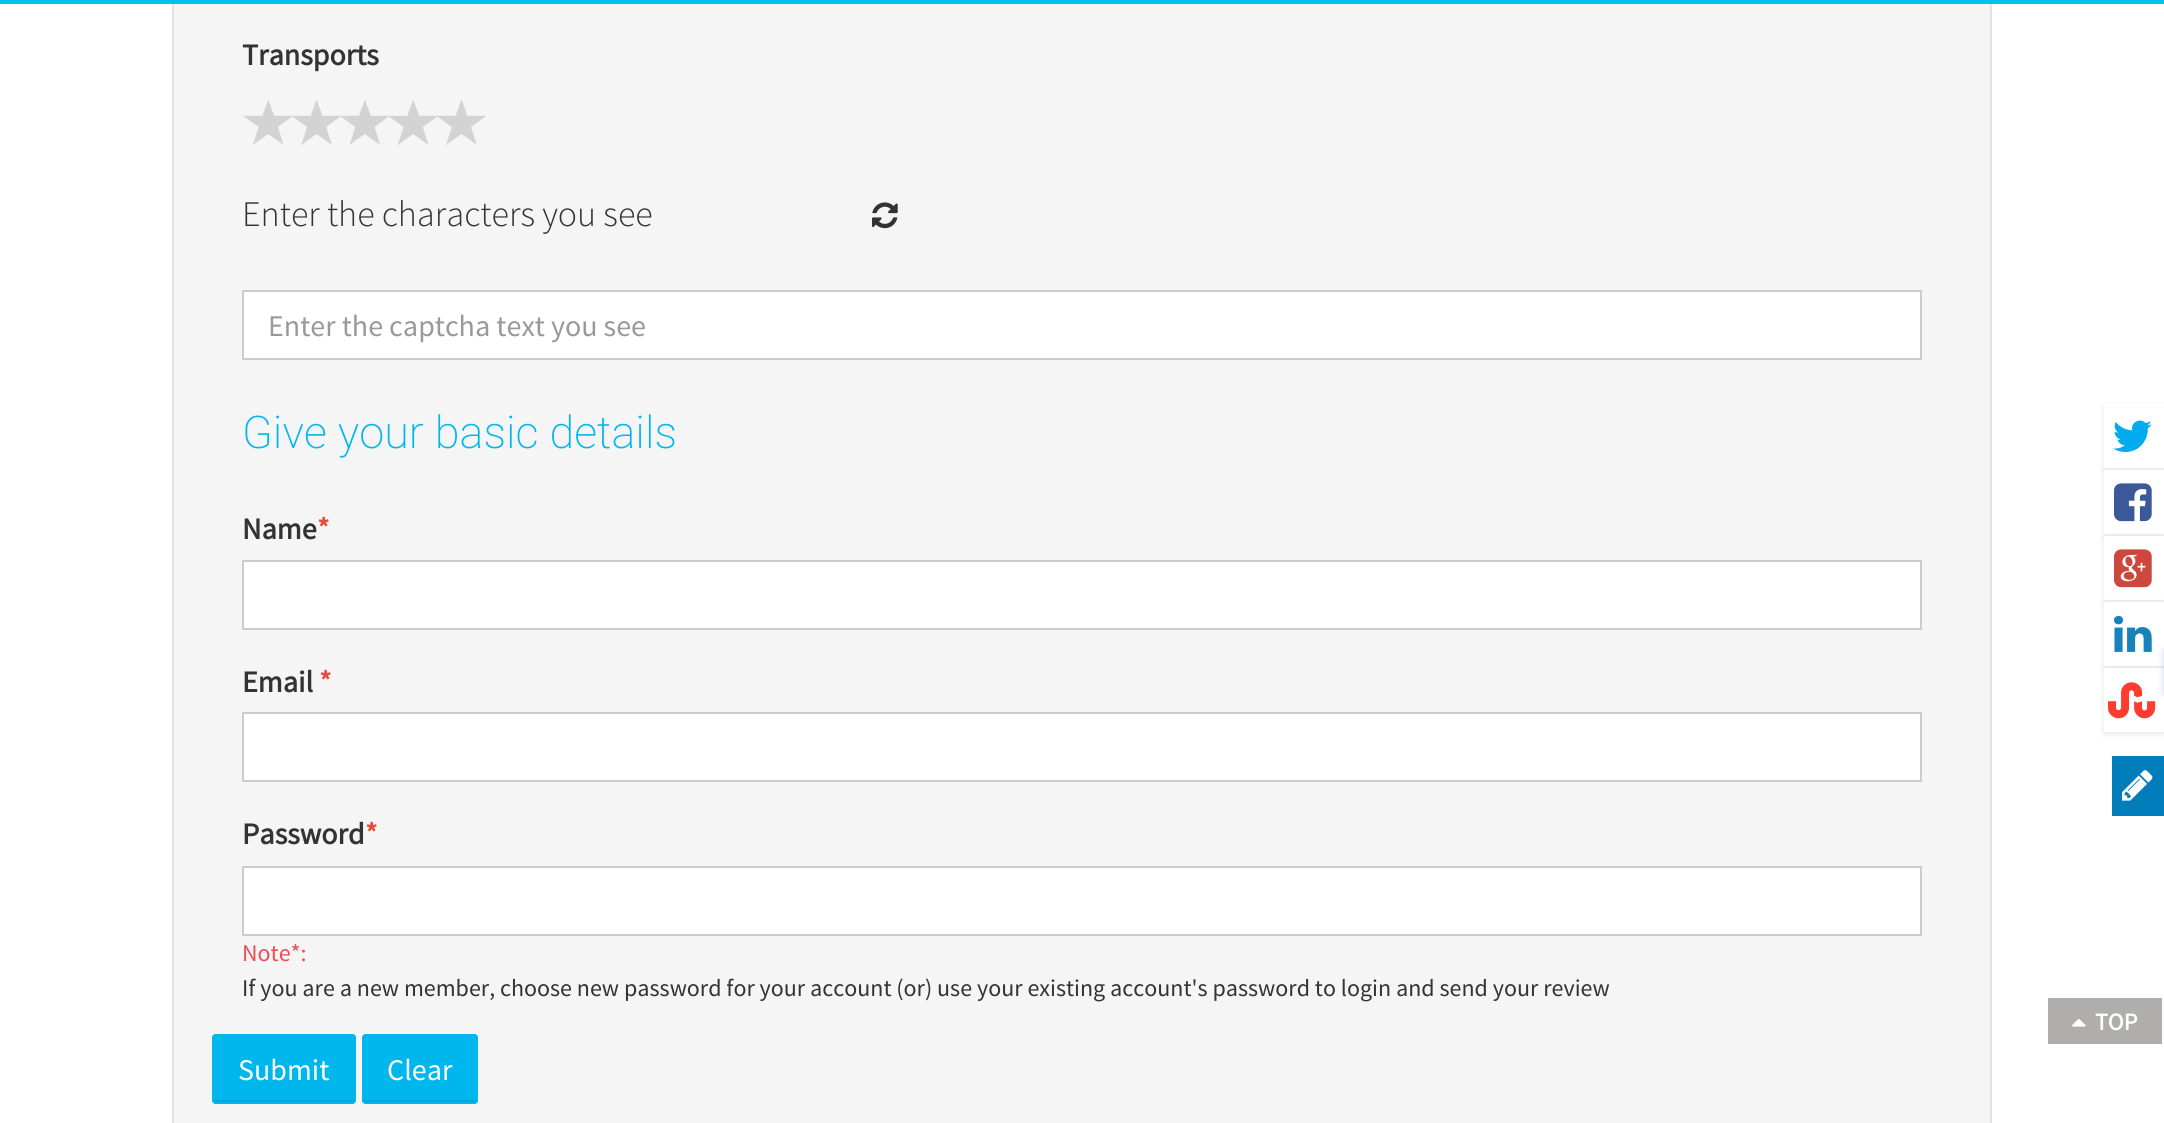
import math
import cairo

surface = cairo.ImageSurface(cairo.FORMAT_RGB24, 2164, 1123)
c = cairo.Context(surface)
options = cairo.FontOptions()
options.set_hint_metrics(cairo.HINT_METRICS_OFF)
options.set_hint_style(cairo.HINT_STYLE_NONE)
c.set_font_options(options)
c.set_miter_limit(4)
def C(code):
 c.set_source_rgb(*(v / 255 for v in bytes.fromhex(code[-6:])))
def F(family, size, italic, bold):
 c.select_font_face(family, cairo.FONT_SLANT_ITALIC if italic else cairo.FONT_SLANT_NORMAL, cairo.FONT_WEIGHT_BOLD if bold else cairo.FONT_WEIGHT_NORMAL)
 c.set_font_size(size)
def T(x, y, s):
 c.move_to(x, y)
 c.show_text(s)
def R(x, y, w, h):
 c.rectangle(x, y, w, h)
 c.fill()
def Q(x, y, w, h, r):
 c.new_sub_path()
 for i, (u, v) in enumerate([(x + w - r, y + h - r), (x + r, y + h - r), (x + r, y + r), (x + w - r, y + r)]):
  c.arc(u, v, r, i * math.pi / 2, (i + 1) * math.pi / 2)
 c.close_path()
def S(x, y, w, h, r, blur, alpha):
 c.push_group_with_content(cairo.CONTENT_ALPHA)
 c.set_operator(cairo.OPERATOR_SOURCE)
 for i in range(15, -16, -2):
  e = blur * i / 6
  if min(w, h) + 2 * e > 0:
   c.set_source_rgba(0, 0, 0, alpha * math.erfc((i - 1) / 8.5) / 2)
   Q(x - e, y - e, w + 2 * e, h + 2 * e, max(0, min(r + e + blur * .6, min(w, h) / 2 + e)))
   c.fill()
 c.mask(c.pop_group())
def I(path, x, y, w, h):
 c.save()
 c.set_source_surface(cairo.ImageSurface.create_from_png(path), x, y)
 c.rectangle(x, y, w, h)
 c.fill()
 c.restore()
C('ffffff')
c.paint()
C('f5f5f5')
R(174,4,1816,1119)
c.rectangle(173,-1,1818,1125)
C('e3e3e3')
c.stroke()
C('00c0ef')
R(0,0,2164,4)
F('Source Sans Pro',30,0,1)
C('333333')
T(242,65,'Transports')
I('1.png',243,100,243,45)
F('Source Sans Pro Light',36,0,0)
T(242,226,'Enter the characters you see')
I('2.png',872,202,26,27)
C('ffffff')
c.rectangle(243,291,1678,68)
c.fill_preserve()
C('cccccc')
c.stroke()
F('Source Sans Pro',30,0,0)
C('999999')
T(268,336,'Enter the captcha text you see')
F('Roboto ExtraLight',45,0,0)
C('00b7ed')
T(242,448,'Give your basic details')
F('Source Sans Pro',30,0,1)
C('333333')
T(242,539,'Name')
C('e74c3c')
T(317,539,'*')
C('ffffff')
c.rectangle(243,561,1678,68)
c.fill_preserve()
C('cccccc')
c.stroke()
C('333333')
T(242,692,'Email')
C('e74c3c')
T(319,692,'*')
C('ffffff')
c.rectangle(243,713,1678,68)
c.fill_preserve()
C('cccccc')
c.stroke()
C('333333')
T(242,844,'Password')
C('e74c3c')
T(365,844,'*')
C('ffffff')
c.rectangle(243,867,1678,68)
c.fill_preserve()
C('cccccc')
c.stroke()
F('Source Sans Pro',24,0,0)
C('ed4d55')
T(242,961,'Note*:')
C('333333')
T(242,996,'If you are a new member, choose new password for your account (or) use your existing account\'s password to login and send your review')
C('00b7ed')
Q(212,1034,144,70,4)
c.fill()
C('00a7d8')
c.new_path()
c.move_to(214,1098)
c.line_to(214,1100)
c.curve_to(214,1101,215,1102,216,1102)
c.line_to(352,1102)
c.curve_to(353,1102,354,1101,354,1100)
c.line_to(354,1098)
c.curve_to(354,1099,353,1100,352,1100)
c.line_to(216,1100)
c.curve_to(215,1100,214,1099,214,1098)
c.close_path()
c.fill()
Q(213,1035,142,68,3)
C('00b7ed')
c.stroke()
F('Source Sans Pro',30,0,0)
C('ffffff')
T(238,1080,'Submit')
C('00b7ed')
Q(362,1034,116,70,4)
c.fill()
C('00a7d8')
c.new_path()
c.move_to(364,1098)
c.line_to(364,1100)
c.curve_to(364,1101,365,1102,366,1102)
c.line_to(474,1102)
c.curve_to(475,1102,476,1101,476,1100)
c.line_to(476,1098)
c.curve_to(476,1099,475,1100,474,1100)
c.line_to(366,1100)
c.curve_to(365,1100,364,1099,364,1098)
c.close_path()
c.fill()
Q(363,1035,114,68,3)
C('00b7ed')
c.stroke()
C('ffffff')
T(387,1080,'Clear')
c.save()
c.set_fill_rule(cairo.FILL_RULE_EVEN_ODD)
c.new_path()
c.move_to(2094,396)
c.line_to(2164,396)
c.line_to(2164,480)
c.line_to(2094,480)
c.close_path()
c.move_to(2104,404)
c.line_to(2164,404)
c.line_to(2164,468)
c.line_to(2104,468)
c.close_path()
c.clip()
C('000000')
S(2104,406,60,64,0,3,.1)
c.restore()
I('3.png',2113,420,39,32)
C('000000')
S(2104,472,60,64,0,3,.1)
C('ffffff')
R(2104,470,60,64)
I('4.png',2114,483,38,39)
C('000000')
S(2104,538,60,64,0,3,.1)
C('ffffff')
R(2104,536,60,64)
I('5.png',2114,549,38,39)
C('000000')
S(2104,604,60,64,0,3,.1)
C('ffffff')
R(2104,602,60,64)
I('6.png',2114,615,38,37)
C('000000')
S(2104,670,60,64,0,3,.1)
C('ffffff')
R(2104,668,60,64)
I('7.png',2108,682,48,37)
C('6565a1')
S(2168,652,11,40,0,5,.75)
C('007dba')
R(2112,756,52,60)
I('8.png',2122,770,31,31)
C('b0adad')
R(2048,998,114,46)
I('9.png',2072,1019,14,8)
F('Source Sans Pro',24,0,1)
C('ffffff')
T(2095,1030,'TOP')
surface.write_to_png('o.png')
